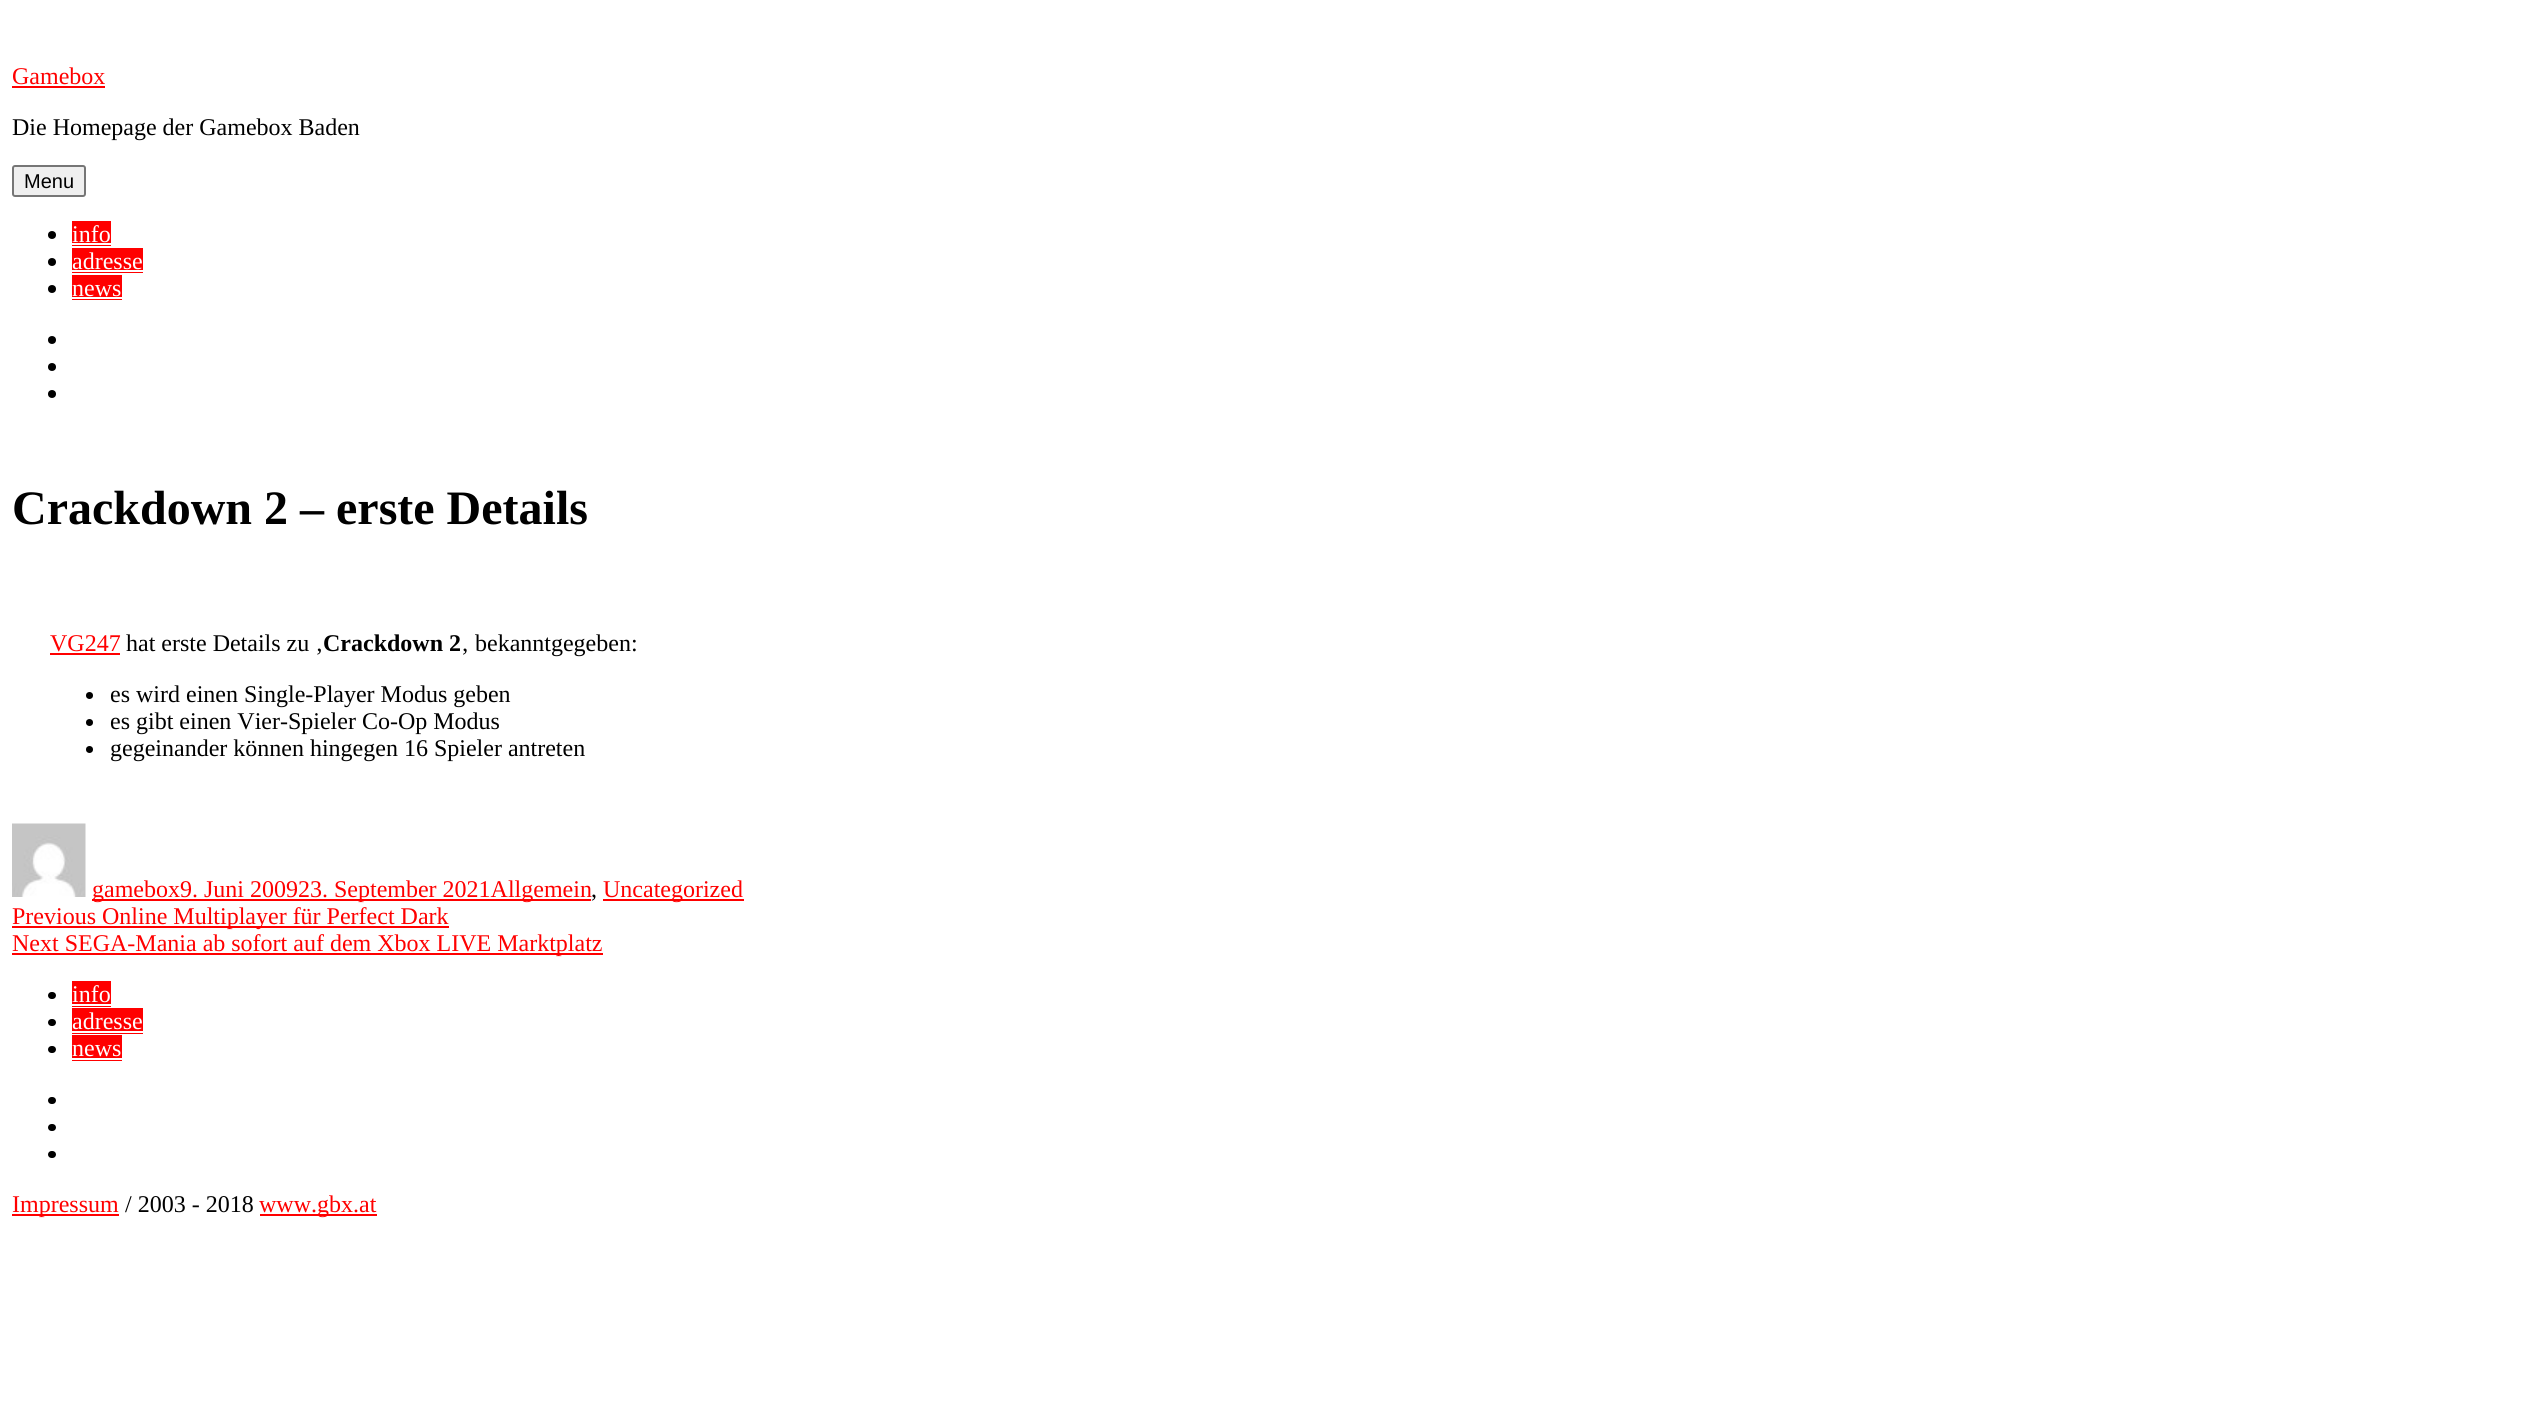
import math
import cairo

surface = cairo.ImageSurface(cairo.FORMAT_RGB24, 2533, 1426)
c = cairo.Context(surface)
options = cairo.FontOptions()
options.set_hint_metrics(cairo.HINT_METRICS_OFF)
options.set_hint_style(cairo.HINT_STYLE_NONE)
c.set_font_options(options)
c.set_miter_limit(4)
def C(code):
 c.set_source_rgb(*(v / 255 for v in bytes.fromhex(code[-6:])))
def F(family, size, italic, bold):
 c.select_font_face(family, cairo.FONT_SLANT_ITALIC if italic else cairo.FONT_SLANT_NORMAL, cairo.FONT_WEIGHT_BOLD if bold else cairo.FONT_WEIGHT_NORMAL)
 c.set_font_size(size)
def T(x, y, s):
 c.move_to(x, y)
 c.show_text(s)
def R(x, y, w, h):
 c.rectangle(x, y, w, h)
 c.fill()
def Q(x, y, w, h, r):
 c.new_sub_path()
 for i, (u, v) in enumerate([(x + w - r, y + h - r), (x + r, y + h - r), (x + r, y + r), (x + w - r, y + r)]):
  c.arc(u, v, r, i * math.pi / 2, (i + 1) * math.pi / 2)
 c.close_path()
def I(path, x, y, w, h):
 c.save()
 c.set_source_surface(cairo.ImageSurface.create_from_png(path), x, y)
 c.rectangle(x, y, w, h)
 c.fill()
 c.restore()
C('ffffff')
c.paint()
F('Liberation Serif',24,0,0)
C('ff0000')
T(12,84,'Gamebox')
R(12,86,93,2)
C('000000')
T(12,135,'Die Homepage der Gamebox Baden')
C('efefef')
Q(13,166,72,30,2)
c.fill_preserve()
C('767676')
c.stroke()
F('Liberation Sans',20,0,0)
C('000000')
T(24,188,'Menu')
c.new_path()
c.arc(52,235,4,0,2 * math.pi)
c.fill()
C('ff0000')
R(72,221,39,25)
F('Liberation Serif',24,0,0)
C('ffffff')
T(72,242,'info')
R(72,243,39,2)
C('000000')
c.new_path()
c.arc(52,262,4,0,2 * math.pi)
c.fill()
C('ff0000')
R(72,248,71,25)
C('ffffff')
T(72,269,'adresse')
R(72,270,71,2)
C('000000')
c.new_path()
c.arc(52,289,4,0,2 * math.pi)
c.fill()
C('ff0000')
R(72,275,50,25)
C('ffffff')
T(72,296,'news')
R(72,297,50,2)
C('000000')
c.new_path()
c.arc(52,340,4,0,2 * math.pi)
c.fill()
c.arc(52,367,4,0,2 * math.pi)
c.fill()
c.arc(52,394,4,0,2 * math.pi)
c.fill()
F('Liberation Serif',48,0,1)
T(12,524,'Crackdown 2 – erste Details')
F('Liberation Serif',24,0,0)
C('ff0000')
T(50,651,'VG247')
R(50,653,70,2)
C('000000')
T(126,651,'hat erste Details zu ‚')
F('Liberation Serif',24,0,1)
T(323,651,'Crackdown 2')
F('Liberation Serif',24,0,0)
T(461,651,'‚ bekanntgegeben:')
c.new_path()
c.arc(89.5,695.5,3.5,0,2 * math.pi)
c.fill()
T(110,702,'es wird einen Single-Player Modus geben')
c.new_path()
c.arc(89.5,722.5,3.5,0,2 * math.pi)
c.fill()
T(110,729,'es gibt einen Vier-Spieler Co-Op Modus')
c.new_path()
c.arc(89.5,749.5,3.5,0,2 * math.pi)
c.fill()
T(110,756,'gegeinander können hingegen 16 Spieler antreten')
I('1.png',12,823,74,74)
C('ff0000')
R(92,899,499,2)
T(92,897,'gamebox9. Juni 200923. September 2021Allgemein')
C('000000')
T(591,897,',')
C('ff0000')
R(603,899,141,2)
T(603,897,'Uncategorized')
R(12,926,437,2)
T(12,924,'Previous Online Multiplayer für Perfect Dark')
R(12,953,591,2)
T(12,951,'Next SEGA-Mania ab sofort auf dem Xbox LIVE Marktplatz')
C('000000')
Q(48,992,8,7,3.5)
c.fill()
C('ff0000')
R(72,981,39,26)
C('ffffff')
T(72,1002,'info')
R(72,1004,39,2)
C('000000')
Q(48,1019,8,7,3.5)
c.fill()
C('ff0000')
R(72,1008,71,26)
C('ffffff')
T(72,1029,'adresse')
R(72,1031,71,2)
C('000000')
Q(48,1046,8,7,3.5)
c.fill()
C('ff0000')
R(72,1035,50,26)
C('ffffff')
T(72,1056,'news')
R(72,1058,50,2)
C('000000')
Q(48,1097,8,7,3.5)
c.fill()
Q(48,1124,8,7,3.5)
c.fill()
Q(48,1151,8,7,3.5)
c.fill()
C('ff0000')
R(12,1214,107,2)
T(12,1212,'Impressum')
C('000000')
T(125,1212,'/ 2003 - 2018')
C('ff0000')
R(260,1214,117,2)
T(259,1212,'www.gbx.at')
surface.write_to_png('o.png')
